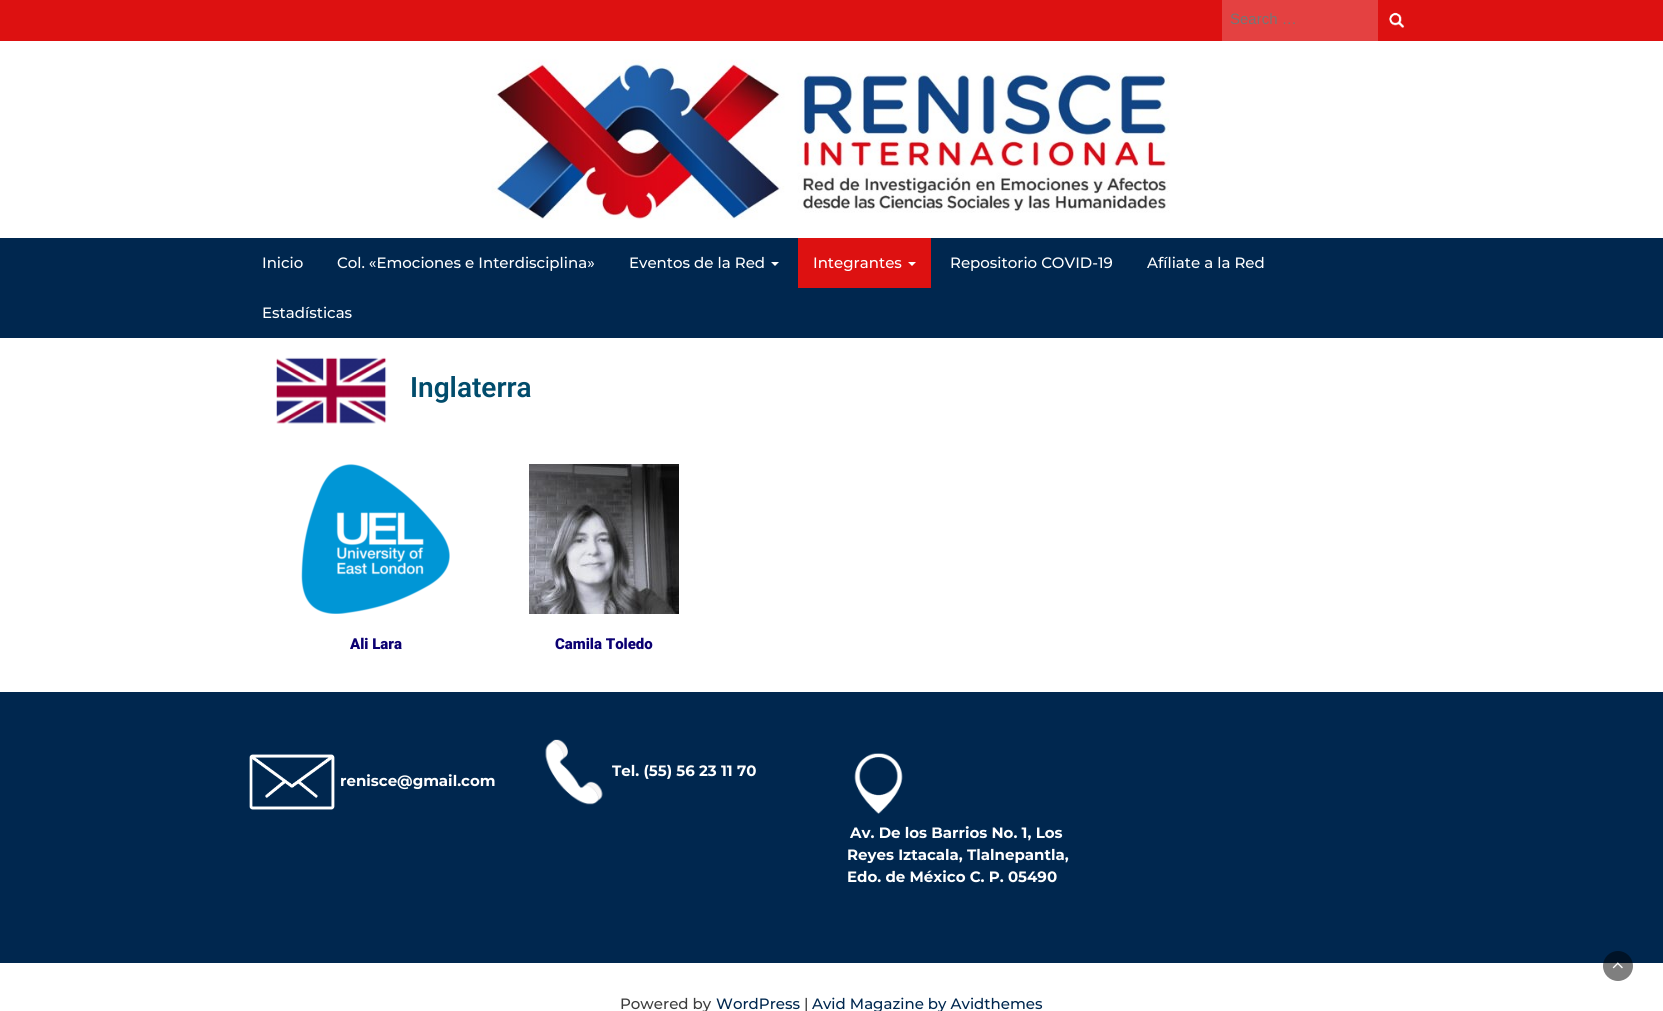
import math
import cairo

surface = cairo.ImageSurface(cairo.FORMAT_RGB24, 1663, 1011)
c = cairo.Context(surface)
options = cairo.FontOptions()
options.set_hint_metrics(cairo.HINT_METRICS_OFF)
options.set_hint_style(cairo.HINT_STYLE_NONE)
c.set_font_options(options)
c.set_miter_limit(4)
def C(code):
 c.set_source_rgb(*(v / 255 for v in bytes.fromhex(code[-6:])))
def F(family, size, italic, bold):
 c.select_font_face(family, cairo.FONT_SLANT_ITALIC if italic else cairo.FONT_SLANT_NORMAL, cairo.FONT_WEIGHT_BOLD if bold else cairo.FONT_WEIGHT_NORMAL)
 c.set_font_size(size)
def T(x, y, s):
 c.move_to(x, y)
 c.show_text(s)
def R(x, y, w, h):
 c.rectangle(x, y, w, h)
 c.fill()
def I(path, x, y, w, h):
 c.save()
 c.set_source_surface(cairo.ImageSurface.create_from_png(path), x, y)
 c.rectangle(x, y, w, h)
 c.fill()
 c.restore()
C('ffffff')
c.paint()
C('dd1111')
R(0,0,1663,41)
C('e44141')
R(1222,0,156,41)
F('Liberation Sans',15,0,0)
C('757575')
T(1230,24,'Search …')
I('1.png',1389,12,16,16)
I('2.png',491,59,679,161)
C('00274f')
R(0,238,1663,100)
F('Montserrat Medium',15,0,0)
C('ffffff')
T(262,268,'Inicio')
T(337,268,'Col. «Emociones e Interdisciplina»')
T(629,268,'Eventos de la Red')
c.new_path()
c.move_to(771,262)
c.line_to(779,262)
c.line_to(775,266)
c.close_path()
c.fill()
C('dd1111')
R(798,238,133,50)
C('ffffff')
T(813,268,'Integrantes')
c.new_path()
c.move_to(908,262)
c.line_to(916,262)
c.line_to(912,266)
c.close_path()
c.fill()
T(950,268,'Repositorio COVID-19')
T(1147,268,'Afíliate a la Red')
T(262,318,'Estadísticas')
I('3.png',276,357,111,67)
F('Roboto SemiBold',28,0,0)
C('014c6c')
T(410,397,'Inglaterra')
I('4.png',301,464,149,150)
F('Roboto Black',15,0,0)
C('0b0072')
T(350,649,'Ali Lara')
I('5.png',529,464,150,150)
T(555,649,'Camila Toledo')
C('00274f')
R(0,692,1663,271)
I('6.png',545,739,58,66)
F('Montserrat',15,0,1)
C('ffffff')
T(612,776,'Tel. (55) 56 23 11 70')
I('7.png',249,754,86,56)
T(340,786,'renisce@gmail.com')
I('8.png',854,753,49,61)
T(850,838,'Av. De los Barrios No. 1, Los')
T(847,860,'Reyes Iztacala, Tlalnepantla,')
T(847,882,'Edo. de México C. P. 05490')
c.set_source_rgba(0,0,0,0.5)
c.new_path()
c.arc(1618,966,15,0,2 * math.pi)
c.fill()
I('9.png',1612,962,11,7)
F('Montserrat Medium',15,0,0)
C('3d3d3d')
T(620,1009,'Powered by')
C('00274f')
T(716,1009,'WordPress')
C('3d3d3d')
T(804,1009,'|')
C('00274f')
T(812,1009,'Avid Magazine by Avidthemes')
surface.write_to_png('o.png')
